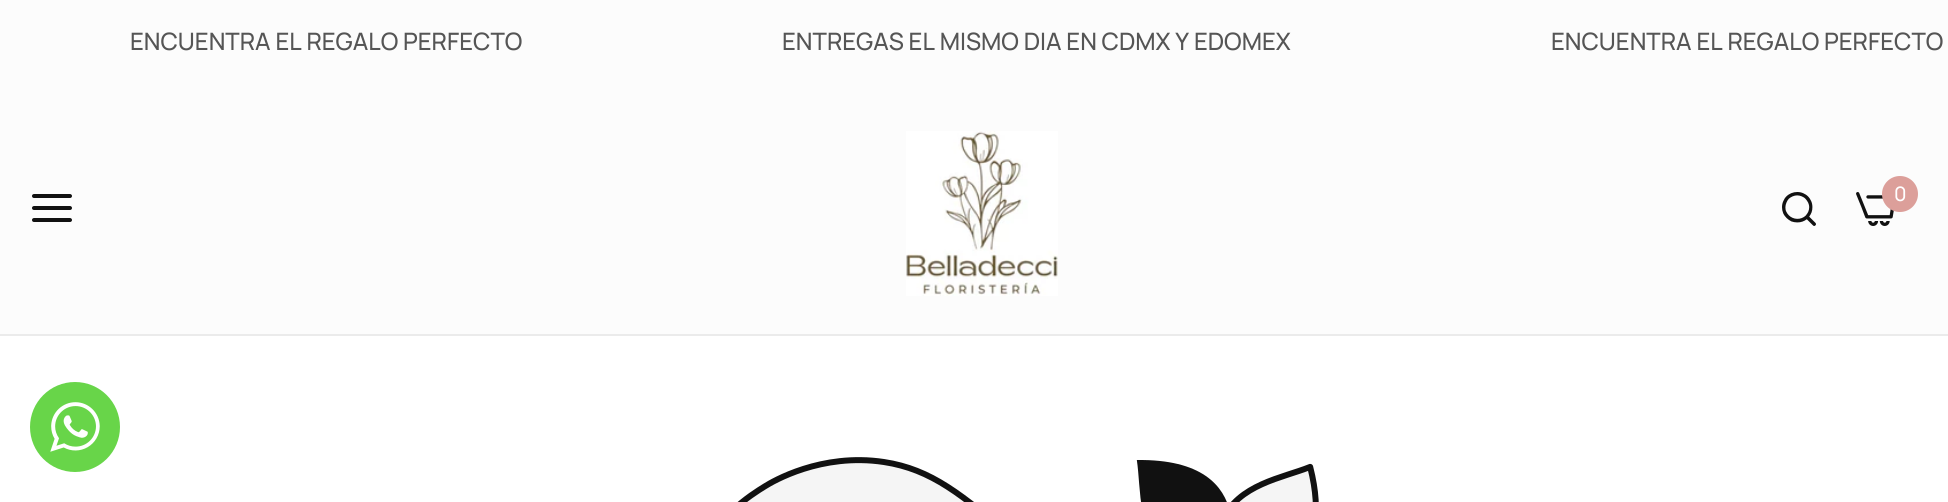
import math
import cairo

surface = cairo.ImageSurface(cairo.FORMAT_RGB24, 1948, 502)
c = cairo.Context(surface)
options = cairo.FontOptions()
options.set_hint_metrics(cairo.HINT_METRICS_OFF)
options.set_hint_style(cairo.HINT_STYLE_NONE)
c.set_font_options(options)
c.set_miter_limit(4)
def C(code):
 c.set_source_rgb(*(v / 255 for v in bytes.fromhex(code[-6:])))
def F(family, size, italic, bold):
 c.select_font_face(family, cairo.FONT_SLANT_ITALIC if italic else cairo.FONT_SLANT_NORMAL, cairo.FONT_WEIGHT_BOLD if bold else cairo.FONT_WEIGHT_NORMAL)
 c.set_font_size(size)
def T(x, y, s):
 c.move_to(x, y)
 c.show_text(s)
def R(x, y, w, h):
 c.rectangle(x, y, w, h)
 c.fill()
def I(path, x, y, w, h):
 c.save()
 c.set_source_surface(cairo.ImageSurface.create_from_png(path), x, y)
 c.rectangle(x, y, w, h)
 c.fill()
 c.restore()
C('ffffff')
c.paint()
C('fcfcfc')
R(0,0,1948,334)
F('Manrope Medium',24,0,0)
C('555555')
T(130,50,'ENCUENTRA EL REGALO PERFECTO')
T(782,50,'ENTREGAS EL MISMO DIA EN CDMX Y EDOMEX')
T(1551,50,'ENCUENTRA EL REGALO PERFECTO')
C('ebebeb')
R(0,334,1948,2)
I('1.png',32,194,40,28)
I('2.png',906,131,152,165)
I('3.png',1782,192,34,34)
I('4.png',1856,192,38,34)
C('dc9f9a')
c.arc(1900,194,18,0,2 * math.pi)
c.fill()
F('Manrope Medium',20,0,0)
C('ffffff')
T(1894,201,'0')
I('5.png',737,457,582,45)
I('6.png',30,382,90,90)
surface.write_to_png('o.png')
